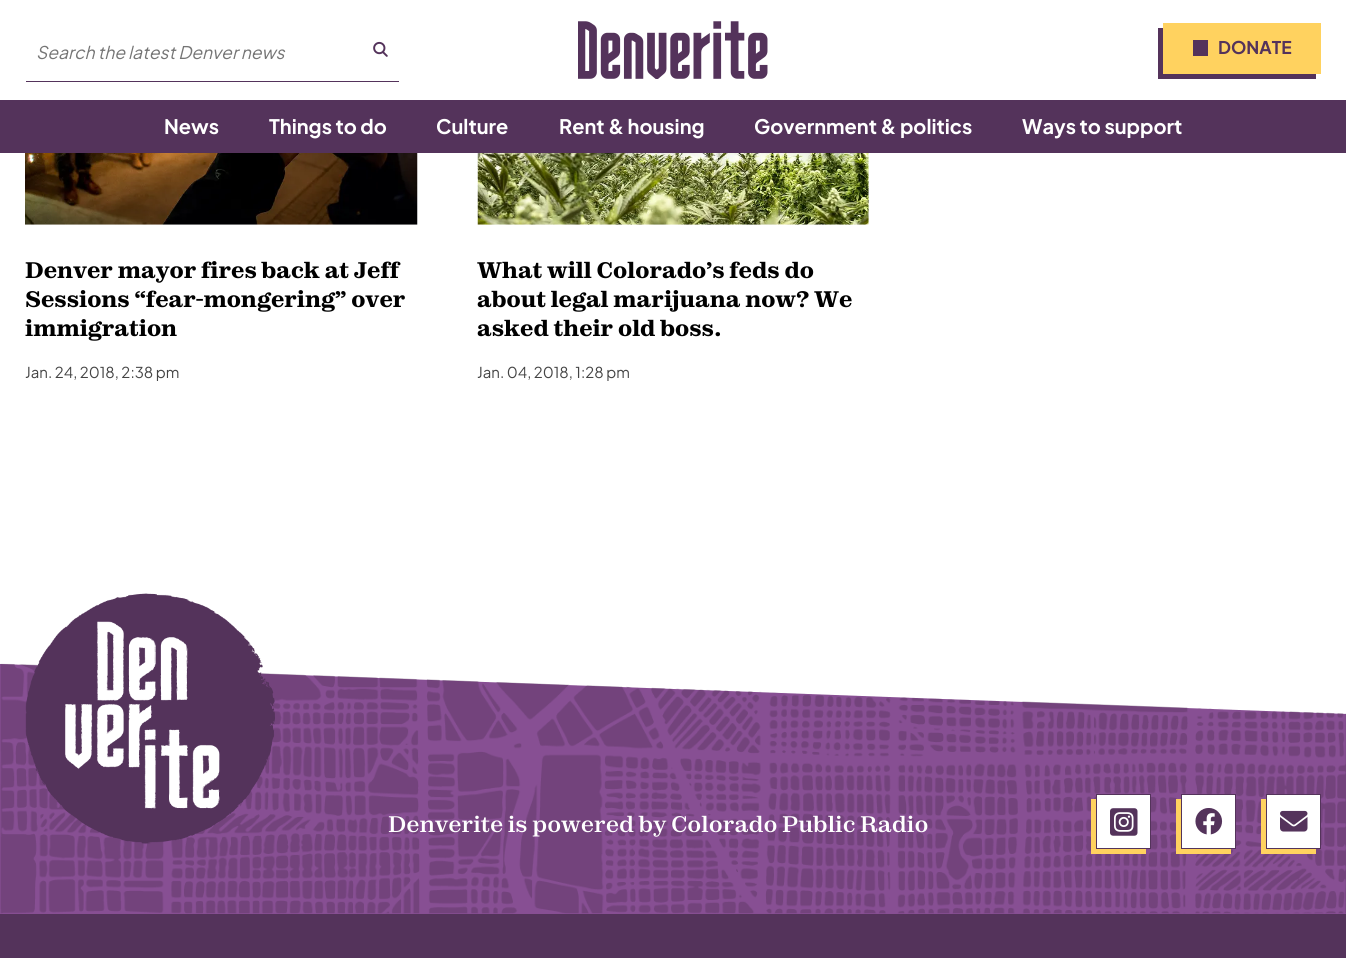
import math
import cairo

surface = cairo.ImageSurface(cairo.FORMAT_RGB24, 1346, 958)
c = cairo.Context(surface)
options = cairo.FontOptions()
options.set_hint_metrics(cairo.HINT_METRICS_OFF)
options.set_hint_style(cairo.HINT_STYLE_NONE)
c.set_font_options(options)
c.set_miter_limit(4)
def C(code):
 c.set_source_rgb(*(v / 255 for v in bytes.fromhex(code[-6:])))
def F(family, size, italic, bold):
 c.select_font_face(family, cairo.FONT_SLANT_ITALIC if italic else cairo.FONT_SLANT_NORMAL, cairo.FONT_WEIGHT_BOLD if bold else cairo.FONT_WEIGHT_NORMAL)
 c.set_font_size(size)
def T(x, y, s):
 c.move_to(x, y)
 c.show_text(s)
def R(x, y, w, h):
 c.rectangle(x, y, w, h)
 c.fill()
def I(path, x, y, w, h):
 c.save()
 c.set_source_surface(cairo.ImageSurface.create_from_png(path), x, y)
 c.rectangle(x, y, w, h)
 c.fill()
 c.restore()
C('ffffff')
c.paint()
F('Plus Jakarta Sans',17.5,1,0)
C('757575')
T(36,59,'Search the latest Denver news')
I('1.png',373,41,15,16)
C('54335b')
R(26,81,373,1)
I('2.png',578,21,190,58)
R(1158,28,158,51)
C('ffd25f')
R(1163,23,158,51)
C('54335b')
R(1193,40,15,16)
F('Plus Jakarta Sans',17.5,0,1)
T(1218,54,'DONATE')
R(0,100,1346,53)
F('Plus Jakarta Sans',20,0,1)
C('ffffff')
T(164,134,'News')
T(269,134,'Things to do')
T(436,134,'Culture')
T(559,134,'Rent & housing')
T(754,134,'Government & politics')
T(1022,134,'Ways to support')
I('3.png',25,153,393,72)
F('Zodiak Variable',22.5,0,1)
C('000000')
T(25,278,'Denver mayor fires back at Jeff')
T(25,307,'Sessions “fear-mongering” over')
T(25,336,'immigration')
F('Plus Jakarta Sans',15,0,0)
C('444444')
T(25,378,'Jan. 24, 2018, 2:38 pm')
I('4.png',477,153,392,72)
F('Zodiak Variable',22.5,0,1)
C('000000')
T(477,278,'What will Colorado’s feds do')
T(477,307,'about legal marijuana now? We')
T(477,336,'asked their old boss.')
F('Plus Jakarta Sans',15,0,0)
C('444444')
T(477,378,'Jan. 04, 2018, 1:28 pm')
C('874f93')
c.new_path()
c.move_to(0,664)
c.line_to(0,914)
c.line_to(1346,914)
c.line_to(1346,714)
c.close_path()
c.fill()
I('5.png',0,663,1346,251)
I('6.png',25,593,250,251)
F('Zodiak Variable Medium',22.5,0,0)
C('ffffff')
T(388,832,'Denverite is powered by Colorado Public Radio')
C('ffd25f')
R(1091,799,55,55)
C('ffffff')
c.rectangle(1096.5,794.5,54,54)
c.fill_preserve()
C('54335b')
c.set_line_width(1)
c.stroke()
I('7.png',1110,808,28,28)
C('ffd25f')
R(1176,799,55,55)
C('ffffff')
c.rectangle(1181.5,794.5,54,54)
c.fill_preserve()
C('54335b')
c.stroke()
I('8.png',1195,808,28,27)
C('ffd25f')
R(1261,799,55,55)
C('ffffff')
c.rectangle(1266.5,794.5,54,54)
c.fill_preserve()
C('54335b')
c.stroke()
I('9.png',1280,810,28,22)
R(0,914,1346,44)
surface.write_to_png('o.png')
